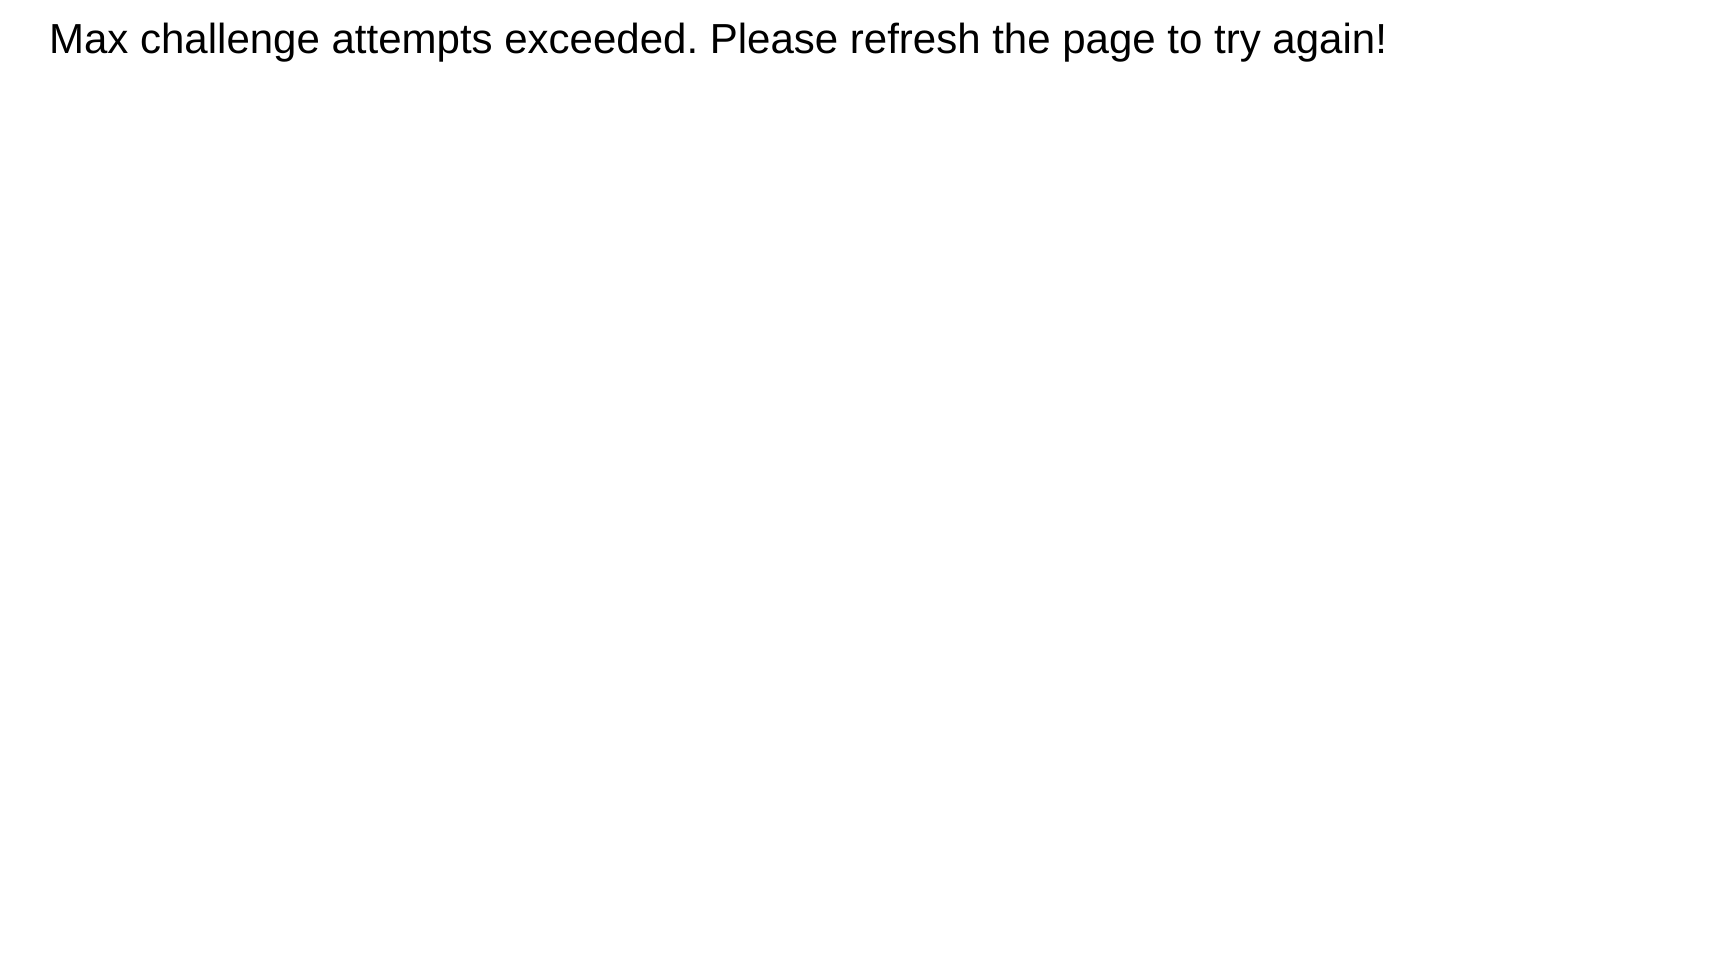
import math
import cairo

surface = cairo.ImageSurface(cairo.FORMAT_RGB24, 1715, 979)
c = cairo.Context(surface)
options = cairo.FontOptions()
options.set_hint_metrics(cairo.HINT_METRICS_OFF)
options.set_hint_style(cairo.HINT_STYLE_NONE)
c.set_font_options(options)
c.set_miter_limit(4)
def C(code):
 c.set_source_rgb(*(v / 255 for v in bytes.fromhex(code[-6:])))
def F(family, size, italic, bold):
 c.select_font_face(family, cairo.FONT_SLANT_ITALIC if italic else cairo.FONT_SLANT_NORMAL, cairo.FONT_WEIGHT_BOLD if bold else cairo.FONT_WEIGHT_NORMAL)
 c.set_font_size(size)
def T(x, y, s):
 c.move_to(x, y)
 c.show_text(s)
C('ffffff')
c.paint()
F('Liberation Sans',42,0,0)
C('000000')
T(49,53,'Max challenge attempts exceeded. Please refresh the page to try again!')
surface.write_to_png('o.png')
